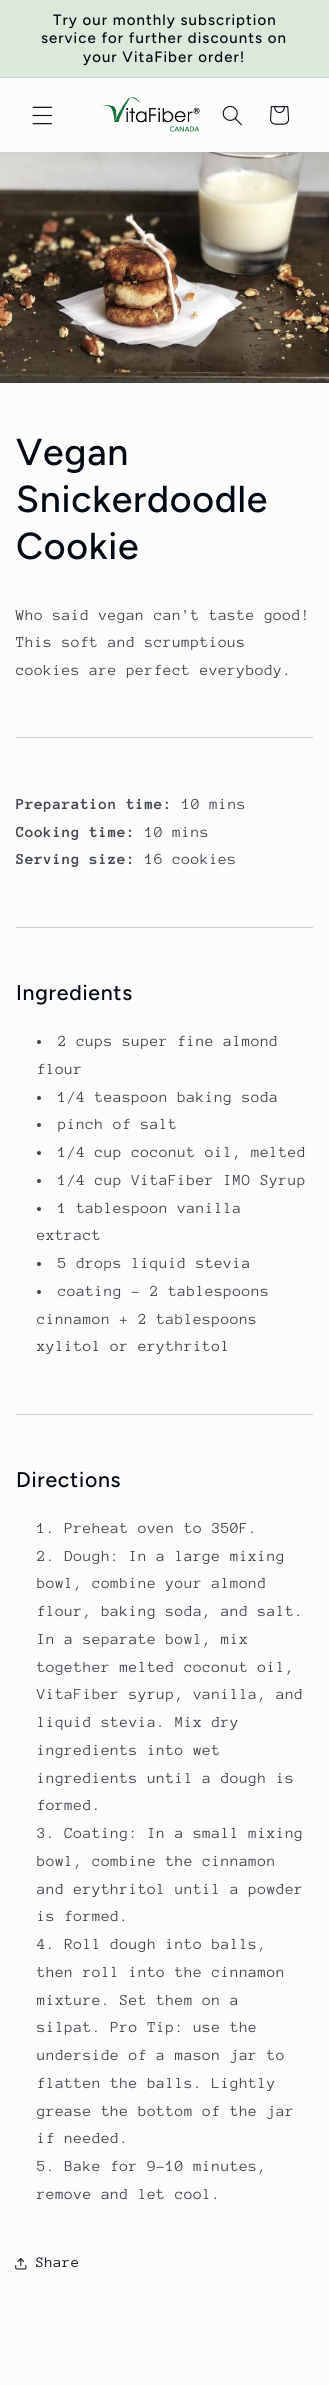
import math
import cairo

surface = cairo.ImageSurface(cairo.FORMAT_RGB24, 329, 2385)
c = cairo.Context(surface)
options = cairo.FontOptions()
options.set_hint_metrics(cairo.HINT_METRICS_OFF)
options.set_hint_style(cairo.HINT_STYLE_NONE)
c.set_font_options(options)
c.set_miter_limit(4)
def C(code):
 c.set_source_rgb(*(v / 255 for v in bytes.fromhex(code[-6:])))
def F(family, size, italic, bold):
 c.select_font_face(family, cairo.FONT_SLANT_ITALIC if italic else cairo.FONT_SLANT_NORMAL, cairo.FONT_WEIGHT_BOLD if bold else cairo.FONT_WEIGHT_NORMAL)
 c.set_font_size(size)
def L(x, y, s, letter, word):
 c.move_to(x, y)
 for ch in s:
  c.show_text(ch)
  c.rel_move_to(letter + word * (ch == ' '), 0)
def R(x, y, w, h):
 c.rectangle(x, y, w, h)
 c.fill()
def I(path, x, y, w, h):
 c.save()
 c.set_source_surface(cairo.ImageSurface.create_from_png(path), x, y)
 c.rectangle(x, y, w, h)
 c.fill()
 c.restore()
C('fcfcfc')
c.paint()
C('dbe9db')
R(0,0,329,77)
C('cad7cb')
R(0,77,329,1)
F('Figtree Medium',15,0,0)
C('020912')
L(53,25,'Try our monthly subscription',1.05,0)
L(41,43,'service for further discounts on',1.05,0)
L(83,62,'your VitaFiber order!',1.05,0)
I('1.png',32,106,20,19)
I('2.png',101,97,99,35)
I('3.png',222,105,20,21)
I('4.png',270,106,20,19)
I('5.png',0,152,329,231)
F('Figtree Medium',37.5,0,0)
L(16,465,'Vegan',.75,0)
L(16,512,'Snickerdoodle',.75,0)
L(16,559,'Cookie',.75,0)
F('Anonymous Pro',15.75,0,0)
C('41464d')
L(16,620,'Who said vegan can\'t taste good!',.6,0)
L(16,647,'This soft and scrumptious',.6,0)
L(16,675,'cookies are perfect everybody.',.6,0)
C('cacbcd')
R(16,737,297,1)
F('Anonymous Pro',15.75,0,1)
C('41464d')
L(16,809,'Preparation time:',.6,0)
F('Anonymous Pro',15.75,0,0)
L(182,809,'10 mins',.6,0)
F('Anonymous Pro',15.75,0,1)
L(16,837,'Cooking time:',.6,0)
F('Anonymous Pro',15.75,0,0)
L(145,837,'10 mins',.6,0)
F('Anonymous Pro',15.75,0,1)
L(16,864,'Serving size:',.6,0)
F('Anonymous Pro',15.75,0,0)
L(145,864,'16 cookies',.6,0)
C('cacbcd')
R(16,927,297,1)
F('Figtree Medium',21.25,0,0)
C('020912')
L(16,1000,'Ingredients',.75,0)
C('41464d')
c.new_path()
c.arc(39,1042,2,0,2 * math.pi)
c.fill()
F('Anonymous Pro',15.75,0,0)
L(58,1046,'2 cups super fine almond',.6,0)
L(37,1074,'flour',.6,0)
c.new_path()
c.arc(39,1098,2,0,2 * math.pi)
c.fill()
L(58,1102,'1/4 teaspoon baking soda',.6,0)
c.new_path()
c.arc(39,1125,2,0,2 * math.pi)
c.fill()
L(58,1129,'pinch of salt',.6,0)
c.new_path()
c.arc(39,1153,2,0,2 * math.pi)
c.fill()
L(58,1157,'1/4 cup coconut oil, melted',.6,0)
c.new_path()
c.arc(39,1181,2,0,2 * math.pi)
c.fill()
L(58,1185,'1/4 cup VitaFiber IMO Syrup',.6,0)
c.new_path()
c.arc(39,1209,2,0,2 * math.pi)
c.fill()
L(58,1213,'1 tablespoon vanilla',.6,0)
L(37,1240,'extract',.6,0)
c.new_path()
c.arc(39,1264,2,0,2 * math.pi)
c.fill()
L(58,1268,'5 drops liquid stevia',.6,0)
c.new_path()
c.arc(39,1292,2,0,2 * math.pi)
c.fill()
L(58,1296,'coating - 2 tablespoons',.6,0)
L(37,1324,'cinnamon + 2 tablespoons',.6,0)
L(37,1351,'xylitol or erythritol',.6,0)
C('cacbcd')
R(16,1414,297,1)
F('Figtree Medium',21.25,0,0)
C('020912')
L(16,1487,'Directions',.75,0)
F('Anonymous Pro',15.75,0,0)
C('41464d')
L(37,1533,'1. Preheat oven to 350F.',.6,0)
L(37,1561,'2. Dough: In a large mixing',.6,0)
L(37,1588,'bowl, combine your almond',.6,0)
L(37,1616,'flour, baking soda, and salt.',.6,0)
L(37,1644,'In a separate bowl, mix',.6,0)
L(37,1672,'together melted coconut oil,',.6,0)
L(37,1699,'VitaFiber syrup, vanilla, and',.6,0)
L(37,1727,'liquid stevia. Mix dry',.6,0)
L(37,1755,'ingredients into wet',.6,0)
L(37,1783,'ingredients until a dough is',.6,0)
L(37,1810,'formed.',.6,0)
L(37,1838,'3. Coating: In a small mixing',.6,0)
L(37,1866,'bowl, combine the cinnamon',.6,0)
L(37,1894,'and erythritol until a powder',.6,0)
L(37,1921,'is formed.',.6,0)
L(37,1949,'4. Roll dough into balls,',.6,0)
L(37,1977,'then roll into the cinnamon',.6,0)
L(37,2005,'mixture. Set them on a',.6,0)
L(37,2032,'silpat. Pro Tip: use the',.6,0)
L(37,2060,'underside of a mason jar to',.6,0)
L(37,2088,'flatten the balls. Lightly',.6,0)
L(37,2116,'grease the bottom of the jar',.6,0)
L(37,2143,'if needed.',.6,0)
L(37,2171,'5. Bake for 9-10 minutes,',.6,0)
L(37,2199,'remove and let cool.',.6,0)
I('6.png',15,2258,12,12)
F('Anonymous Pro',15,0,0)
C('020912')
L(36,2267,'Share',.6,0)
surface.write_to_png('o.png')
